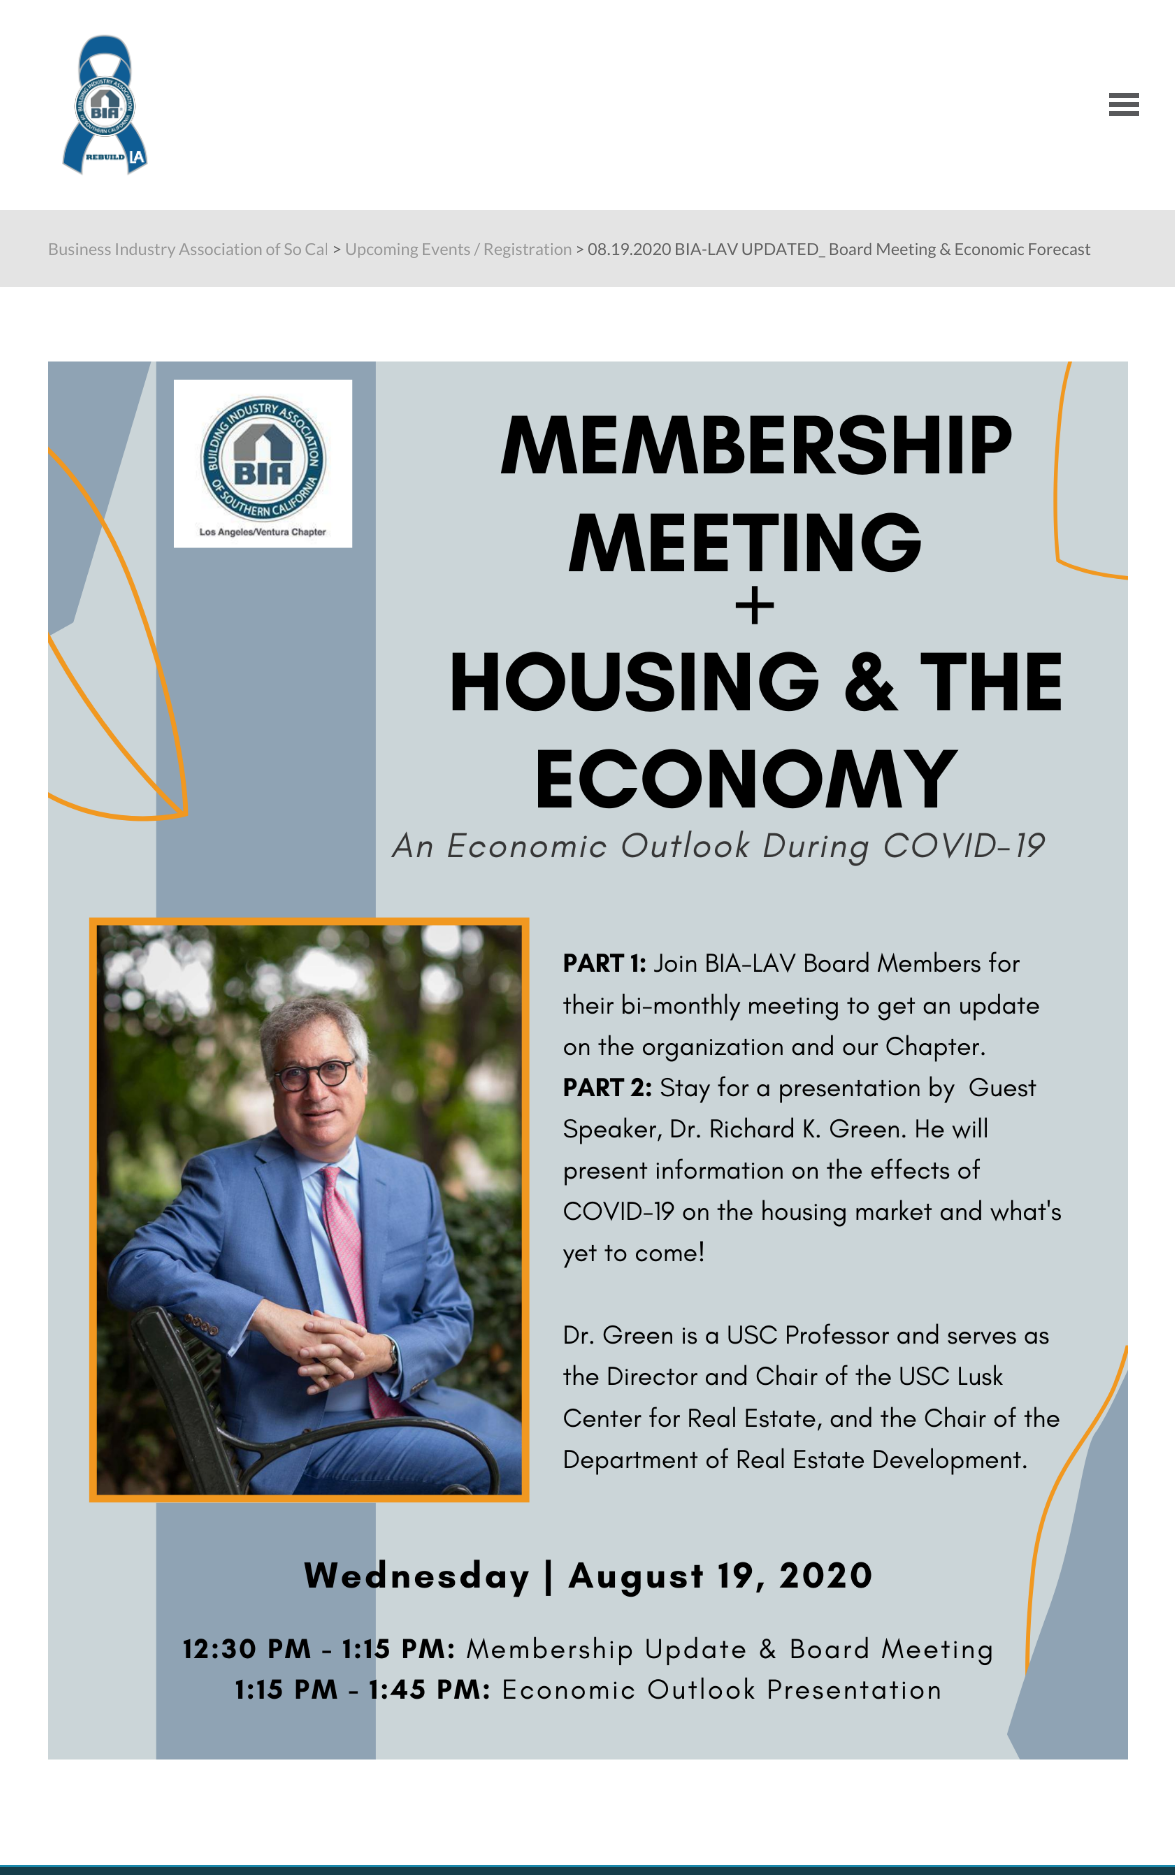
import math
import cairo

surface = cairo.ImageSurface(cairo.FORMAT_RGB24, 1175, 1875)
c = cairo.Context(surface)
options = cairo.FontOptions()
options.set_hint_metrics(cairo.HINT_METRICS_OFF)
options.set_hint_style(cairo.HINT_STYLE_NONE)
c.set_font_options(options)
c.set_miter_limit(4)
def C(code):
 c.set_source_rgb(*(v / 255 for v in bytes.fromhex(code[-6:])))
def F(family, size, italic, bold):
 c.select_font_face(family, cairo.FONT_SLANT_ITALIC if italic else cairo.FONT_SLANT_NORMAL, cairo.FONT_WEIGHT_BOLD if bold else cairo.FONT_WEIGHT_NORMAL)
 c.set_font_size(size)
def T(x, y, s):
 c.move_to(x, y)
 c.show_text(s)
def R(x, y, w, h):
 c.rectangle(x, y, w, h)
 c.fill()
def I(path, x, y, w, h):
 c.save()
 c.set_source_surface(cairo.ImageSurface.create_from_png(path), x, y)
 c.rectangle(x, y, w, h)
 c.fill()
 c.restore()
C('163d49')
c.paint()
C('ffffff')
R(0,0,1175,210)
I('1.png',62,34,86,142)
C('58595b')
R(1109,102,30,5)
R(1109,93,30,5)
R(1109,111,30,5)
C('ffffff')
R(0,287,1175,1578)
C('e4e4e4')
R(0,210,1175,77)
F('Lato',16.5,0,0)
C('999999')
T(48,255,'Business Industry Association of So Cal')
C('666666')
T(332,255,'>')
C('999999')
T(345,255,'Upcoming Events / Registration')
C('666666')
T(575,255,'> 08.19.2020 BIA-LAV UPDATED_ Board Meeting & Economic Forecast')
I('2.png',48,361,1080,1399)
C('1a88aa')
R(0,1865,1175,2)
surface.write_to_png('o.png')
